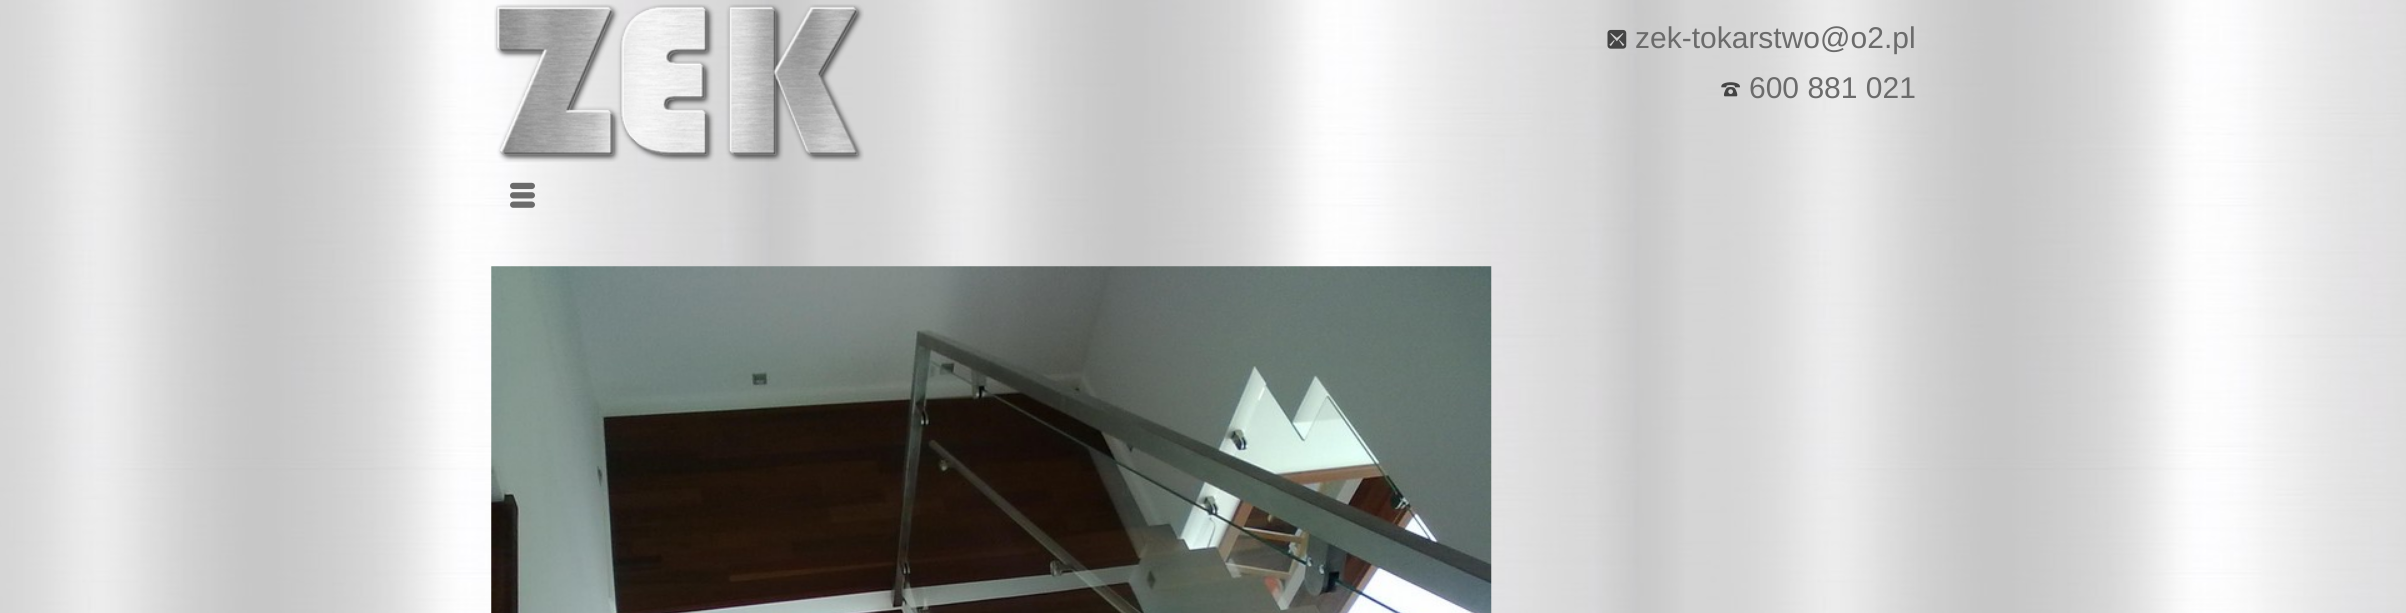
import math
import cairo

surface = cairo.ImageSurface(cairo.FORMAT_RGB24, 2406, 613)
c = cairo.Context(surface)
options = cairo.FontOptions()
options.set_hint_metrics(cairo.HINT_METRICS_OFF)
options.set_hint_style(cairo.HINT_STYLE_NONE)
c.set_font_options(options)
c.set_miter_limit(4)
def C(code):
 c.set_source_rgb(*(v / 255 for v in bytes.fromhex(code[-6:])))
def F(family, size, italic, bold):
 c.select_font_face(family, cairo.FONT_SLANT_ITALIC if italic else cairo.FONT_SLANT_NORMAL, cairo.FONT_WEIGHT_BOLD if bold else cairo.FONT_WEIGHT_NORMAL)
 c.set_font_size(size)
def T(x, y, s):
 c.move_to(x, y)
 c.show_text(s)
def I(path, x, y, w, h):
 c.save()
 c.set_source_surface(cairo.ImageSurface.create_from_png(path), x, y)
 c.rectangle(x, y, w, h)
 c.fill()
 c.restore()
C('ffffff')
c.paint()
I('1.png',0,0,2406,613)
I('2.png',494,4,370,158)
I('3.png',1607,29,20,20)
F('Liberation Sans',30,0,0)
C('6b6b6b')
T(1635,48,'zek-tokarstwo@o2.pl')
I('4.png',1721,82,19,15)
T(1749,98,'600 881 021')
I('5.png',510,182,25,26)
I('6.png',491,266,1001,347)
surface.write_to_png('o.png')
